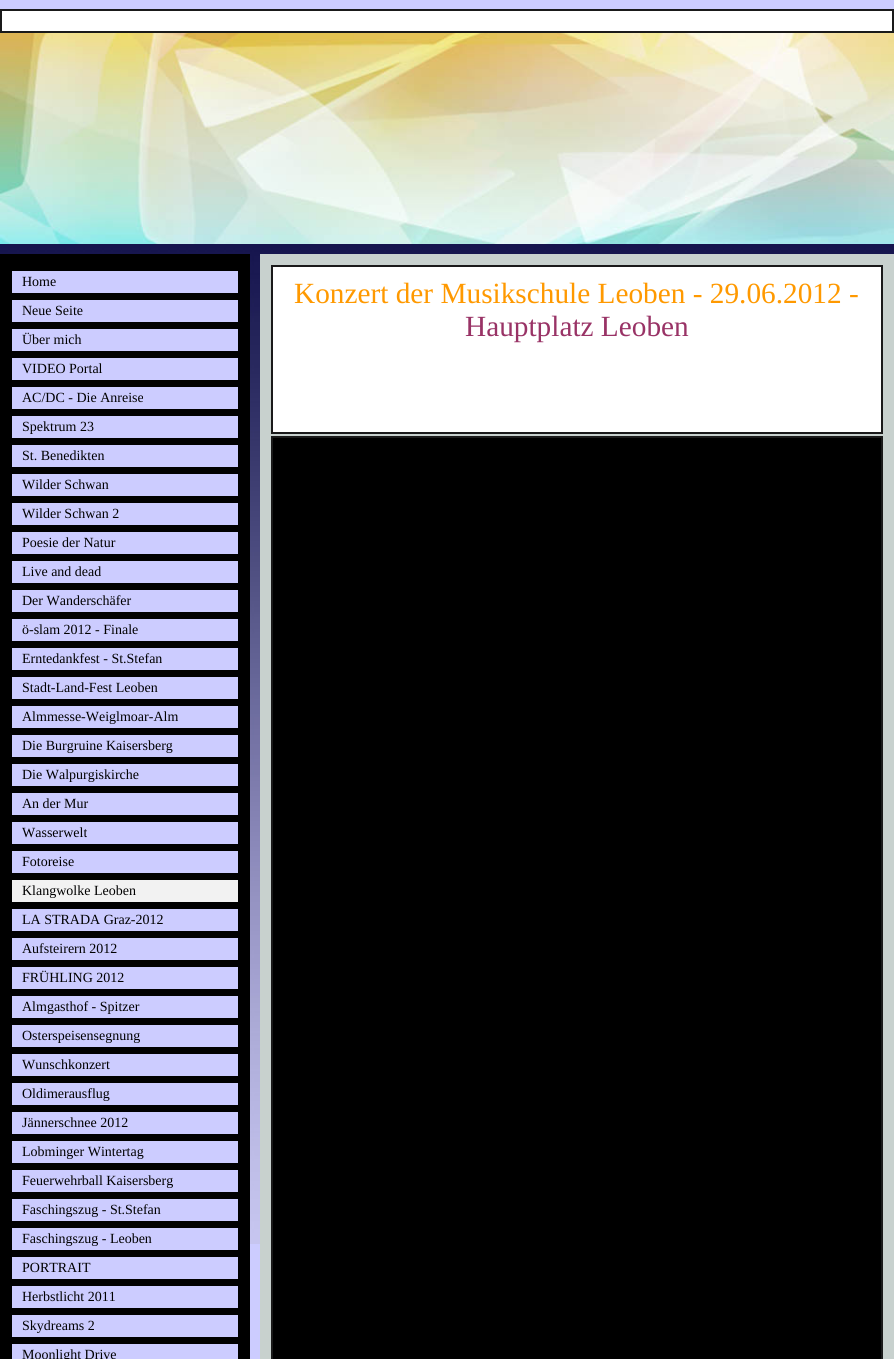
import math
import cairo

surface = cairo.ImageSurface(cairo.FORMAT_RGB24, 894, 1359)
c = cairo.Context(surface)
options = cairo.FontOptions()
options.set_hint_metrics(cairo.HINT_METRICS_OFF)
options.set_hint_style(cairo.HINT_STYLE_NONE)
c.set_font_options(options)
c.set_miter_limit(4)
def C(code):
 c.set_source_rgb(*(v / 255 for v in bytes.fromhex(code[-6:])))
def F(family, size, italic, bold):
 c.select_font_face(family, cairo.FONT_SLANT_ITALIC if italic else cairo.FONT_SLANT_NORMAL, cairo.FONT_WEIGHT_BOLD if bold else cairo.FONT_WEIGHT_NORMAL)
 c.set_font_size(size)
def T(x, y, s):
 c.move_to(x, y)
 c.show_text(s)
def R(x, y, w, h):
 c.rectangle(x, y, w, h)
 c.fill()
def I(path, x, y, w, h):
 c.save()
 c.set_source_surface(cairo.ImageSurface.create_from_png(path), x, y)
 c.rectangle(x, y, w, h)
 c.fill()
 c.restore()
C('ccccff')
c.paint()
I('1.png',0,244,894,1000)
I('2.png',0,33,894,211)
C('ffffff')
c.rectangle(1,10,892,22)
c.fill_preserve()
C('1a1a1a')
c.stroke()
C('000000')
R(0,254,250,1105)
C('ccccff')
R(12,271,226,22)
F('Liberation Serif',14,0,0)
C('000000')
T(22,286,'Home')
C('ccccff')
R(12,300,226,22)
C('000000')
T(22,315,'Neue Seite')
C('ccccff')
R(12,329,226,22)
C('000000')
T(22,344,'Über mich')
C('ccccff')
R(12,358,226,22)
C('000000')
T(22,373,'VIDEO Portal')
C('ccccff')
R(12,387,226,22)
C('000000')
T(22,402,'AC/DC - Die Anreise')
C('ccccff')
R(12,416,226,22)
C('000000')
T(22,431,'Spektrum 23')
C('ccccff')
R(12,445,226,22)
C('000000')
T(22,460,'St. Benedikten')
C('ccccff')
R(12,474,226,22)
C('000000')
T(22,489,'Wilder Schwan')
C('ccccff')
R(12,503,226,22)
C('000000')
T(22,518,'Wilder Schwan 2')
C('ccccff')
R(12,532,226,22)
C('000000')
T(22,547,'Poesie der Natur')
C('ccccff')
R(12,561,226,22)
C('000000')
T(22,576,'Live and dead')
C('ccccff')
R(12,590,226,22)
C('000000')
T(22,605,'Der Wanderschäfer')
C('ccccff')
R(12,619,226,22)
C('000000')
T(22,634,'ö-slam 2012 - Finale')
C('ccccff')
R(12,648,226,22)
C('000000')
T(22,663,'Erntedankfest - St.Stefan')
C('ccccff')
R(12,677,226,22)
C('000000')
T(22,692,'Stadt-Land-Fest Leoben')
C('ccccff')
R(12,706,226,22)
C('000000')
T(22,721,'Almmesse-Weiglmoar-Alm')
C('ccccff')
R(12,735,226,22)
C('000000')
T(22,750,'Die Burgruine Kaisersberg')
C('ccccff')
R(12,764,226,22)
C('000000')
T(22,779,'Die Walpurgiskirche')
C('ccccff')
R(12,793,226,22)
C('000000')
T(22,808,'An der Mur')
C('ccccff')
R(12,822,226,22)
C('000000')
T(22,837,'Wasserwelt')
C('ccccff')
R(12,851,226,22)
C('000000')
T(22,866,'Fotoreise')
C('f2f2f2')
R(12,880,226,22)
C('000000')
T(22,895,'Klangwolke Leoben')
C('ccccff')
R(12,909,226,22)
C('000000')
T(22,924,'LA STRADA Graz-2012')
C('ccccff')
R(12,938,226,22)
C('000000')
T(22,953,'Aufsteirern 2012')
C('ccccff')
R(12,967,226,22)
C('000000')
T(22,982,'FRÜHLING 2012')
C('ccccff')
R(12,996,226,22)
C('000000')
T(22,1011,'Almgasthof - Spitzer')
C('ccccff')
R(12,1025,226,22)
C('000000')
T(22,1040,'Osterspeisensegnung')
C('ccccff')
R(12,1054,226,22)
C('000000')
T(22,1069,'Wunschkonzert')
C('ccccff')
R(12,1083,226,22)
C('000000')
T(22,1098,'Oldimerausflug')
C('ccccff')
R(12,1112,226,22)
C('000000')
T(22,1127,'Jännerschnee 2012')
C('ccccff')
R(12,1141,226,22)
C('000000')
T(22,1156,'Lobminger Wintertag')
C('ccccff')
R(12,1170,226,22)
C('000000')
T(22,1185,'Feuerwehrball Kaisersberg')
C('ccccff')
R(12,1199,226,22)
C('000000')
T(22,1214,'Faschingszug - St.Stefan')
C('ccccff')
R(12,1228,226,22)
C('000000')
T(22,1243,'Faschingszug - Leoben')
C('ccccff')
R(12,1257,226,22)
C('000000')
T(22,1272,'PORTRAIT')
C('ccccff')
R(12,1286,226,22)
C('000000')
T(22,1301,'Herbstlicht 2011')
C('ccccff')
R(12,1315,226,22)
C('000000')
T(22,1330,'Skydreams 2')
C('ccccff')
R(12,1344,226,15)
C('000000')
T(22,1359,'Moonlight Drive')
C('c8d1ce')
R(260,254,634,1105)
C('ffffff')
c.rectangle(272,266,610,167)
c.fill_preserve()
C('1a1a1a')
c.stroke()
F('Liberation Serif',29.3,0,0)
C('ff9900')
T(294,303,'Konzert der Musikschule Leoben - 29.06.2012 -')
C('993366')
T(465,336,'Hauptplatz Leoben')
C('000000')
c.rectangle(272,437,610,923)
c.fill_preserve()
C('1a1a1a')
c.stroke()
surface.write_to_png('o.png')
